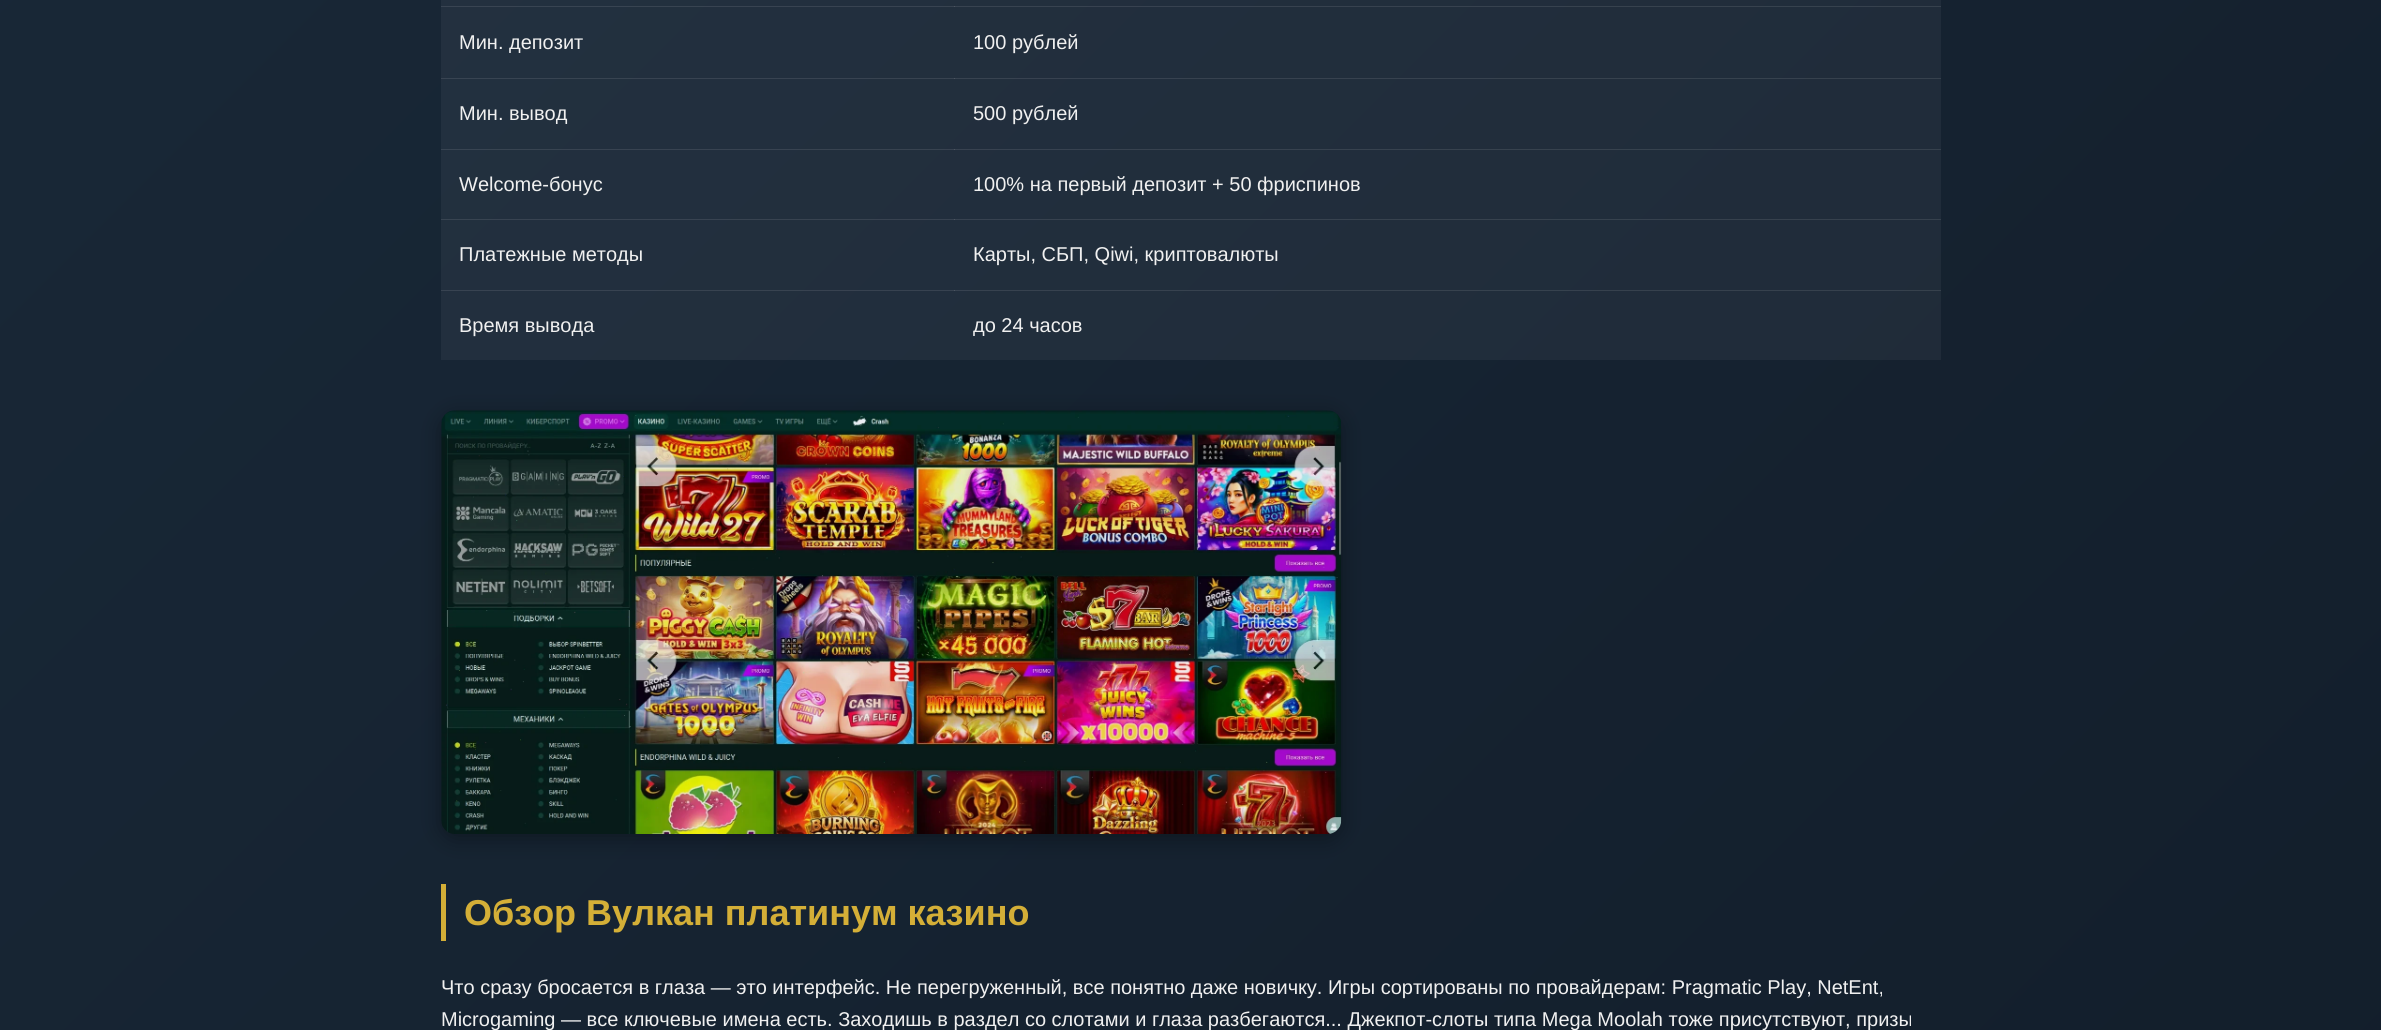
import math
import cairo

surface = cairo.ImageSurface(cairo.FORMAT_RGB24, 2381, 1030)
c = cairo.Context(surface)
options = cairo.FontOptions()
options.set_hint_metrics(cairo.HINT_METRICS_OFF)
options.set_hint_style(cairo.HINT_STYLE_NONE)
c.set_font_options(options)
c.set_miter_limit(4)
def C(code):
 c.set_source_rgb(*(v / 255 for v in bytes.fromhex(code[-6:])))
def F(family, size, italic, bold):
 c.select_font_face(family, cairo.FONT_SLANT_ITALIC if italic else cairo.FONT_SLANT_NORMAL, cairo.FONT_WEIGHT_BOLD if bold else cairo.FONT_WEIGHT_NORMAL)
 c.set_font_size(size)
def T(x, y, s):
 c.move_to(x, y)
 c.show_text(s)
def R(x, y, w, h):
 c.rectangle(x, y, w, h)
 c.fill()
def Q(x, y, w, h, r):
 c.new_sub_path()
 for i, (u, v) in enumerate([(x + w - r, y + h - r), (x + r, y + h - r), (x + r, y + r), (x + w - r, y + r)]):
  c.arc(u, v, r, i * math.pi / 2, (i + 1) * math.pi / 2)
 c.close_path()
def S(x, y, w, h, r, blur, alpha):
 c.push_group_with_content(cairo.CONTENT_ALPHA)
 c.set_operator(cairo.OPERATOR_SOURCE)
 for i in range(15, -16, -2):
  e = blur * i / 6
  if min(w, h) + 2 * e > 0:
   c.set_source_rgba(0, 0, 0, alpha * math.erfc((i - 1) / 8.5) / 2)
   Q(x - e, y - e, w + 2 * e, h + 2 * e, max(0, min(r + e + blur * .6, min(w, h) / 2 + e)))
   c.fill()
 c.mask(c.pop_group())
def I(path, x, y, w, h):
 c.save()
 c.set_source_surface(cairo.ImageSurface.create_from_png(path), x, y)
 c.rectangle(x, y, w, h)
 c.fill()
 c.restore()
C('ffffff')
c.paint()
gradient = cairo.LinearGradient(-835,-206,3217,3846)
gradient.add_color_stop_rgba(0,0.102,0.165,0.227,1)
gradient.add_color_stop_rgba(1,0.051,0.082,0.125,1)
c.set_source(gradient)
R(0,0,2381,1030)
c.set_source_rgba(1,1,1,0.05)
R(441,0,1500,360)
c.set_source_rgba(1,1,1,0.1)
R(954,6,987,1)
R(441,6,514,1)
R(954,78,987,1)
R(441,78,514,1)
F('Liberation Sans',20,0,0)
C('f0f0f0')
T(459,49,'Мин. депозит')
T(973,49,'100 рублей')
c.set_source_rgba(1,1,1,0.1)
R(954,149,987,1)
R(441,149,514,1)
C('f0f0f0')
T(459,120,'Мин. вывод')
T(973,120,'500 рублей')
c.set_source_rgba(1,1,1,0.1)
R(954,219,987,1)
R(441,219,514,1)
C('f0f0f0')
T(459,191,'Welcome-бонус')
T(973,191,'100% на первый депозит + 50 фриспинов')
c.set_source_rgba(1,1,1,0.1)
R(954,290,987,1)
R(441,290,514,1)
C('f0f0f0')
T(459,261,'Платежные методы')
T(973,261,'Карты, СБП, Qiwi, криптовалюты')
T(459,332,'Время вывода')
T(973,332,'до 24 часов')
C('000000')
S(441,415,900,424,14,11,.35)
I('1.png',441,410,901,424)
C('d4af37')
R(441,884,5,57)
F('Liberation Sans',36,0,1)
T(464,925,'Обзор Вулкан платинум казино')
F('Liberation Sans',20,0,0)
C('f0f0f0')
T(441,994,'Что сразу бросается в глаза — это интерфейс. Не перегруженный, все понятно даже новичку. Игры сортированы по провайдерам: Pragmatic Play, NetEnt,')
T(441,1026,'Microgaming — все ключевые имена есть. Заходишь в раздел со слотами и глаза разбегаются... Джекпот-слоты типа Mega Moolah тоже присутствуют, призы')
surface.write_to_png('o.png')
